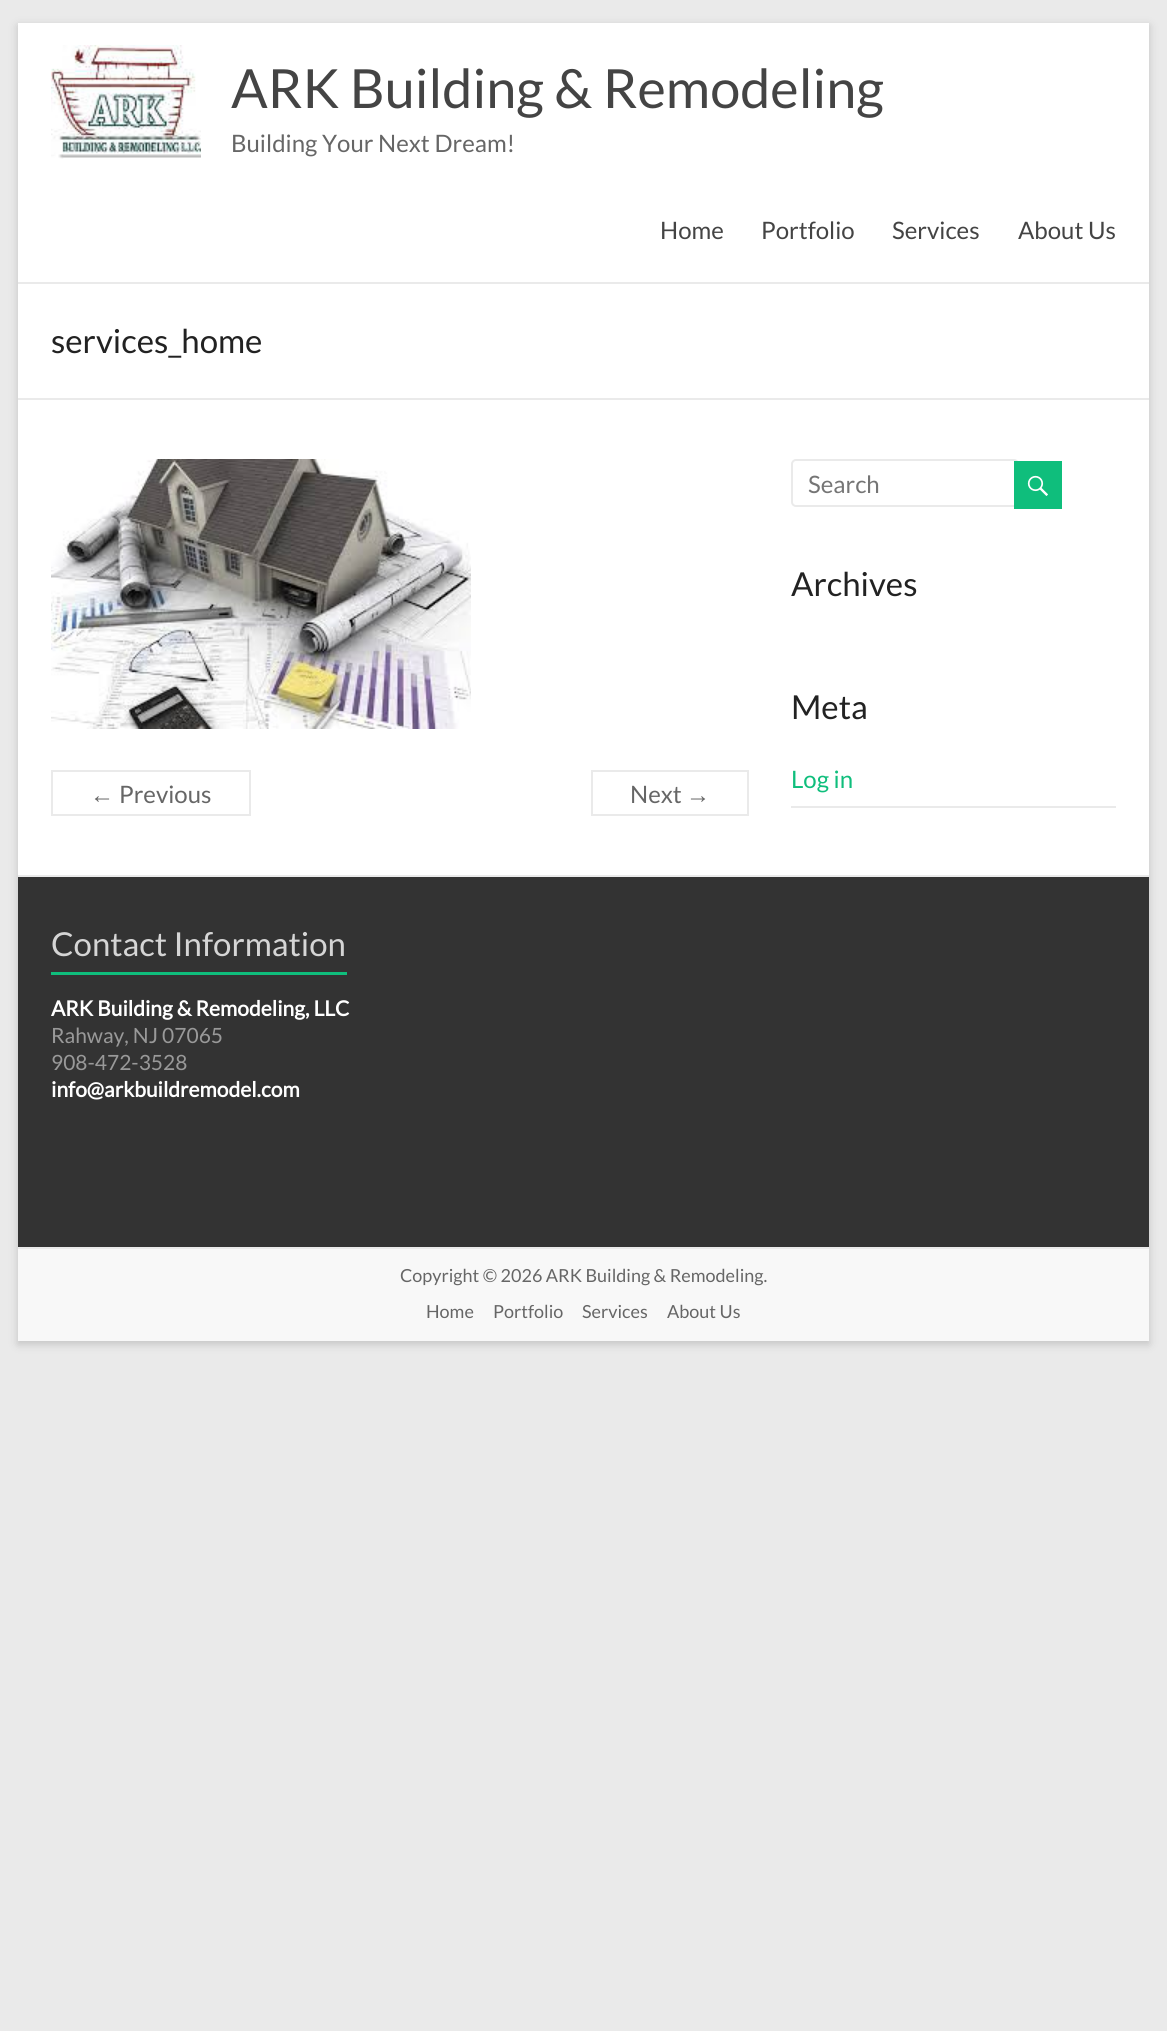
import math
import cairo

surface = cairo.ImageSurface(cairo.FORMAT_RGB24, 1167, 2031)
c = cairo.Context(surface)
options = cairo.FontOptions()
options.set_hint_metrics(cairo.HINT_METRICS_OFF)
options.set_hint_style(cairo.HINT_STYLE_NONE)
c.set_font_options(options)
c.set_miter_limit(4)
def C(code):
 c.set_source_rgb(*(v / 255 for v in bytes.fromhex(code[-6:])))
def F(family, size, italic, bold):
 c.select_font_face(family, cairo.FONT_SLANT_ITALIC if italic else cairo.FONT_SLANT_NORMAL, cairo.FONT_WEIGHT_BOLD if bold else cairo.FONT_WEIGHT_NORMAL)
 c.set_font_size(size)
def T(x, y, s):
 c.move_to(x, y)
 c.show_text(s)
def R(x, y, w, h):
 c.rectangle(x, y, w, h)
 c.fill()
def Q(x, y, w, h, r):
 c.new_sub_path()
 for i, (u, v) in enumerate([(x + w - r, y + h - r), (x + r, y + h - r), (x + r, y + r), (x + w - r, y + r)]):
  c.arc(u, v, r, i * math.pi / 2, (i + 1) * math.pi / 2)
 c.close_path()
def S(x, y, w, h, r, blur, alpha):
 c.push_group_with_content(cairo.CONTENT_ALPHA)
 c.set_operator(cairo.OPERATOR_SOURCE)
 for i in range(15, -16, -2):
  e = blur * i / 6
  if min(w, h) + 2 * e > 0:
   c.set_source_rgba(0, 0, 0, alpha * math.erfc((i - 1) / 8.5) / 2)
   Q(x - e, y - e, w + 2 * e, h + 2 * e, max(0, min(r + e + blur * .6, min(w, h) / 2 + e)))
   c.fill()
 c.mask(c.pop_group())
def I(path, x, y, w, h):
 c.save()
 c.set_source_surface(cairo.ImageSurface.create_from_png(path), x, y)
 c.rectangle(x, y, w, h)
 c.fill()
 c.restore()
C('eaeaea')
c.paint()
C('646464')
S(18,26,1131,1318,0,4.5,.3)
C('ffffff')
R(18,23,1131,852)
C('eaeaea')
R(18,282,1131,2)
I('1.png',51,45,150,114)
F('Lato',54,0,0)
C('444444')
T(231,108,'ARK Building & Remodeling')
F('Lato',24,0,0)
C('666666')
T(231,152,'Building Your Next Dream!')
C('444444')
T(660,239,'Home')
T(761,239,'Portfolio')
T(892,239,'Services')
T(1018,239,'About Us')
C('eaeaea')
R(18,398,1131,2)
F('Lato',33,0,0)
C('222222')
T(51,353,'services_home')
I('2.png',51,459,420,270)
c.rectangle(52,771,198,44)
C('eaeaea')
c.stroke()
F('Liberation Sans',24,0,0)
C('666666')
T(90,803,'←')
F('Lato',24,0,0)
T(119,803,'Previous')
c.rectangle(592,771,156,44)
C('eaeaea')
c.stroke()
C('666666')
T(630,803,'Next')
F('Liberation Sans',24,0,0)
T(686,803,'→')
Q(792,460,226,46,4)
C('eaeaea')
c.stroke()
F('Lato',24,0,0)
C('757575')
T(808,493,'Search')
C('0fbe7c')
R(1014,461,48,48)
I('3.png',1027,475,21,21)
F('Lato',33,0,0)
C('222222')
T(791,596,'Archives')
T(791,719,'Meta')
C('eaeaea')
R(791,806,325,2)
F('Lato',24,0,0)
C('0fbe7c')
T(791,788,'Log in')
C('333333')
R(18,877,1131,370)
C('eaeaea')
R(18,875,1131,2)
F('Lato',33,0,0)
C('d5d5d5')
T(51,956,'Contact Information')
C('0fbe7c')
R(51,972,296,3)
F('Lato',21,0,1)
C('ffffff')
T(51,1016,'ARK Building & Remodeling, LLC')
F('Lato',21,0,0)
C('999999')
T(51,1043,'Rahway, NJ 07065')
T(51,1070,'908-472-3528')
F('Lato',21,0,1)
C('ffffff')
T(51,1097,'info@arkbuildremodel.com')
C('f8f8f8')
R(18,1249,1131,92)
C('eaeaea')
R(18,1247,1131,2)
F('Lato',18,0,0)
C('666666')
T(400,1282,'Copyright © 2026 ARK Building & Remodeling.')
T(426,1318,'Home')
T(493,1318,'Portfolio')
T(582,1318,'Services')
T(667,1318,'About Us')
surface.write_to_png('o.png')
